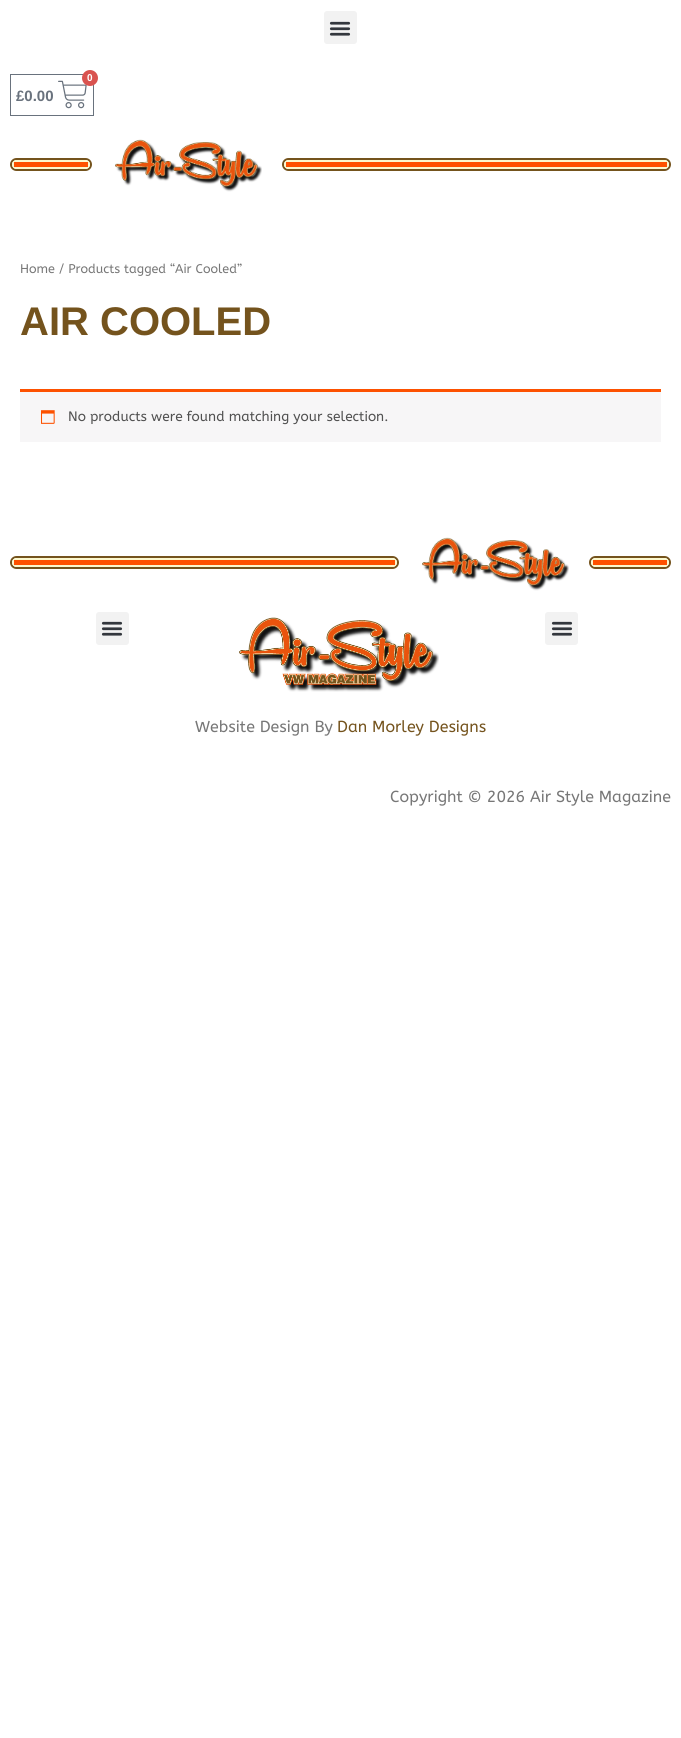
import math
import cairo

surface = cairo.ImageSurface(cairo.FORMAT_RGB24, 681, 1738)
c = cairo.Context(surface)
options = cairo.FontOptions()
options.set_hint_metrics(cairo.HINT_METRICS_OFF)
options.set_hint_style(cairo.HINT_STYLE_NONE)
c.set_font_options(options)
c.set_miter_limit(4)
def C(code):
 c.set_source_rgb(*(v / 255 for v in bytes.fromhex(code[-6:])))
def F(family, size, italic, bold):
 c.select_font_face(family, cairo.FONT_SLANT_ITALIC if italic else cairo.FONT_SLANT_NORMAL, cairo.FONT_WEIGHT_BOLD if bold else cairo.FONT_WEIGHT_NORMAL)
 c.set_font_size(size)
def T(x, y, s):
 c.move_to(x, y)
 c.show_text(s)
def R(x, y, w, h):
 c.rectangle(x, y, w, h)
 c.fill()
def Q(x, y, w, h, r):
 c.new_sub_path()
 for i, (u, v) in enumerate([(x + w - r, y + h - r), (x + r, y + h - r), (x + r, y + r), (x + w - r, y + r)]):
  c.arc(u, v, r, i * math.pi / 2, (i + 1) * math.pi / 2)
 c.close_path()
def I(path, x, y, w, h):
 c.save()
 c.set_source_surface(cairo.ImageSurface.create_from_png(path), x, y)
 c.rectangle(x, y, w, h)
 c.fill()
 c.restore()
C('ffffff')
c.paint()
C('f2f2f2')
Q(324,11,33,33,3)
c.fill()
I('1.png',329,21,22,15)
c.rectangle(10.5,74.5,83,41)
C('69727d')
c.set_line_width(1)
c.stroke()
I('2.png',58,80,29,29)
C('d9534f')
c.arc(90,78,8,0,2 * math.pi)
c.fill()
F('Liberation Sans',10,0,1)
C('ffffff')
T(87,81,'0')
F('Liberation Sans',15,0,1)
C('69727d')
T(16,101,'£0.00')
Q(11,159,80,11,5.5)
C('74531d')
c.set_line_width(2)
c.stroke()
Q(13,161,76,7,3.5)
C('fcf8cd')
c.stroke()
C('ff5100')
R(14,162,74,5)
I('3.png',115,139,147,53)
Q(283,159,387,11,5.5)
C('74531d')
c.stroke()
Q(285,161,383,7,3.5)
C('fcf8cd')
c.stroke()
C('ff5100')
R(286,162,381,5)
F('ABeeZee',12.6,0,0)
C('777777')
T(20,273,'Home / Products tagged “Air Cooled”')
F('Liberation Sans',40,0,1)
C('74531d')
T(20,335,'AIR COOLED')
C('f7f6f7')
R(20,392,641,50)
C('fd5100')
R(20,389,641,3)
I('4.png',41,410,14,14)
F('ABeeZee',13.7,0,0)
C('515151')
T(68,421,'No products were found matching your selection.')
Q(11,557,387,11,5.5)
C('74531d')
c.stroke()
Q(13,559,383,7,3.5)
C('fcf8cd')
c.stroke()
C('ff5100')
R(14,560,381,5)
I('5.png',422,537,147,54)
Q(590,557,80,11,5.5)
C('74531d')
c.stroke()
Q(592,559,76,7,3.5)
C('fcf8cd')
c.stroke()
C('ff5100')
R(593,560,74,5)
C('f2f2f2')
Q(96,612,33,33,3)
c.fill()
I('1.png',101,621,22,15)
I('6.png',239,617,200,75)
Q(545,612,33,33,3)
c.fill()
I('1.png',551,621,22,15)
F('ABeeZee',16,0,0)
C('777777')
T(195,732,'Website Design By')
C('74531d')
T(337,732,'Dan Morley Designs')
C('777777')
T(390,802,'Copyright © 2026 Air Style Magazine')
surface.write_to_png('o.png')
